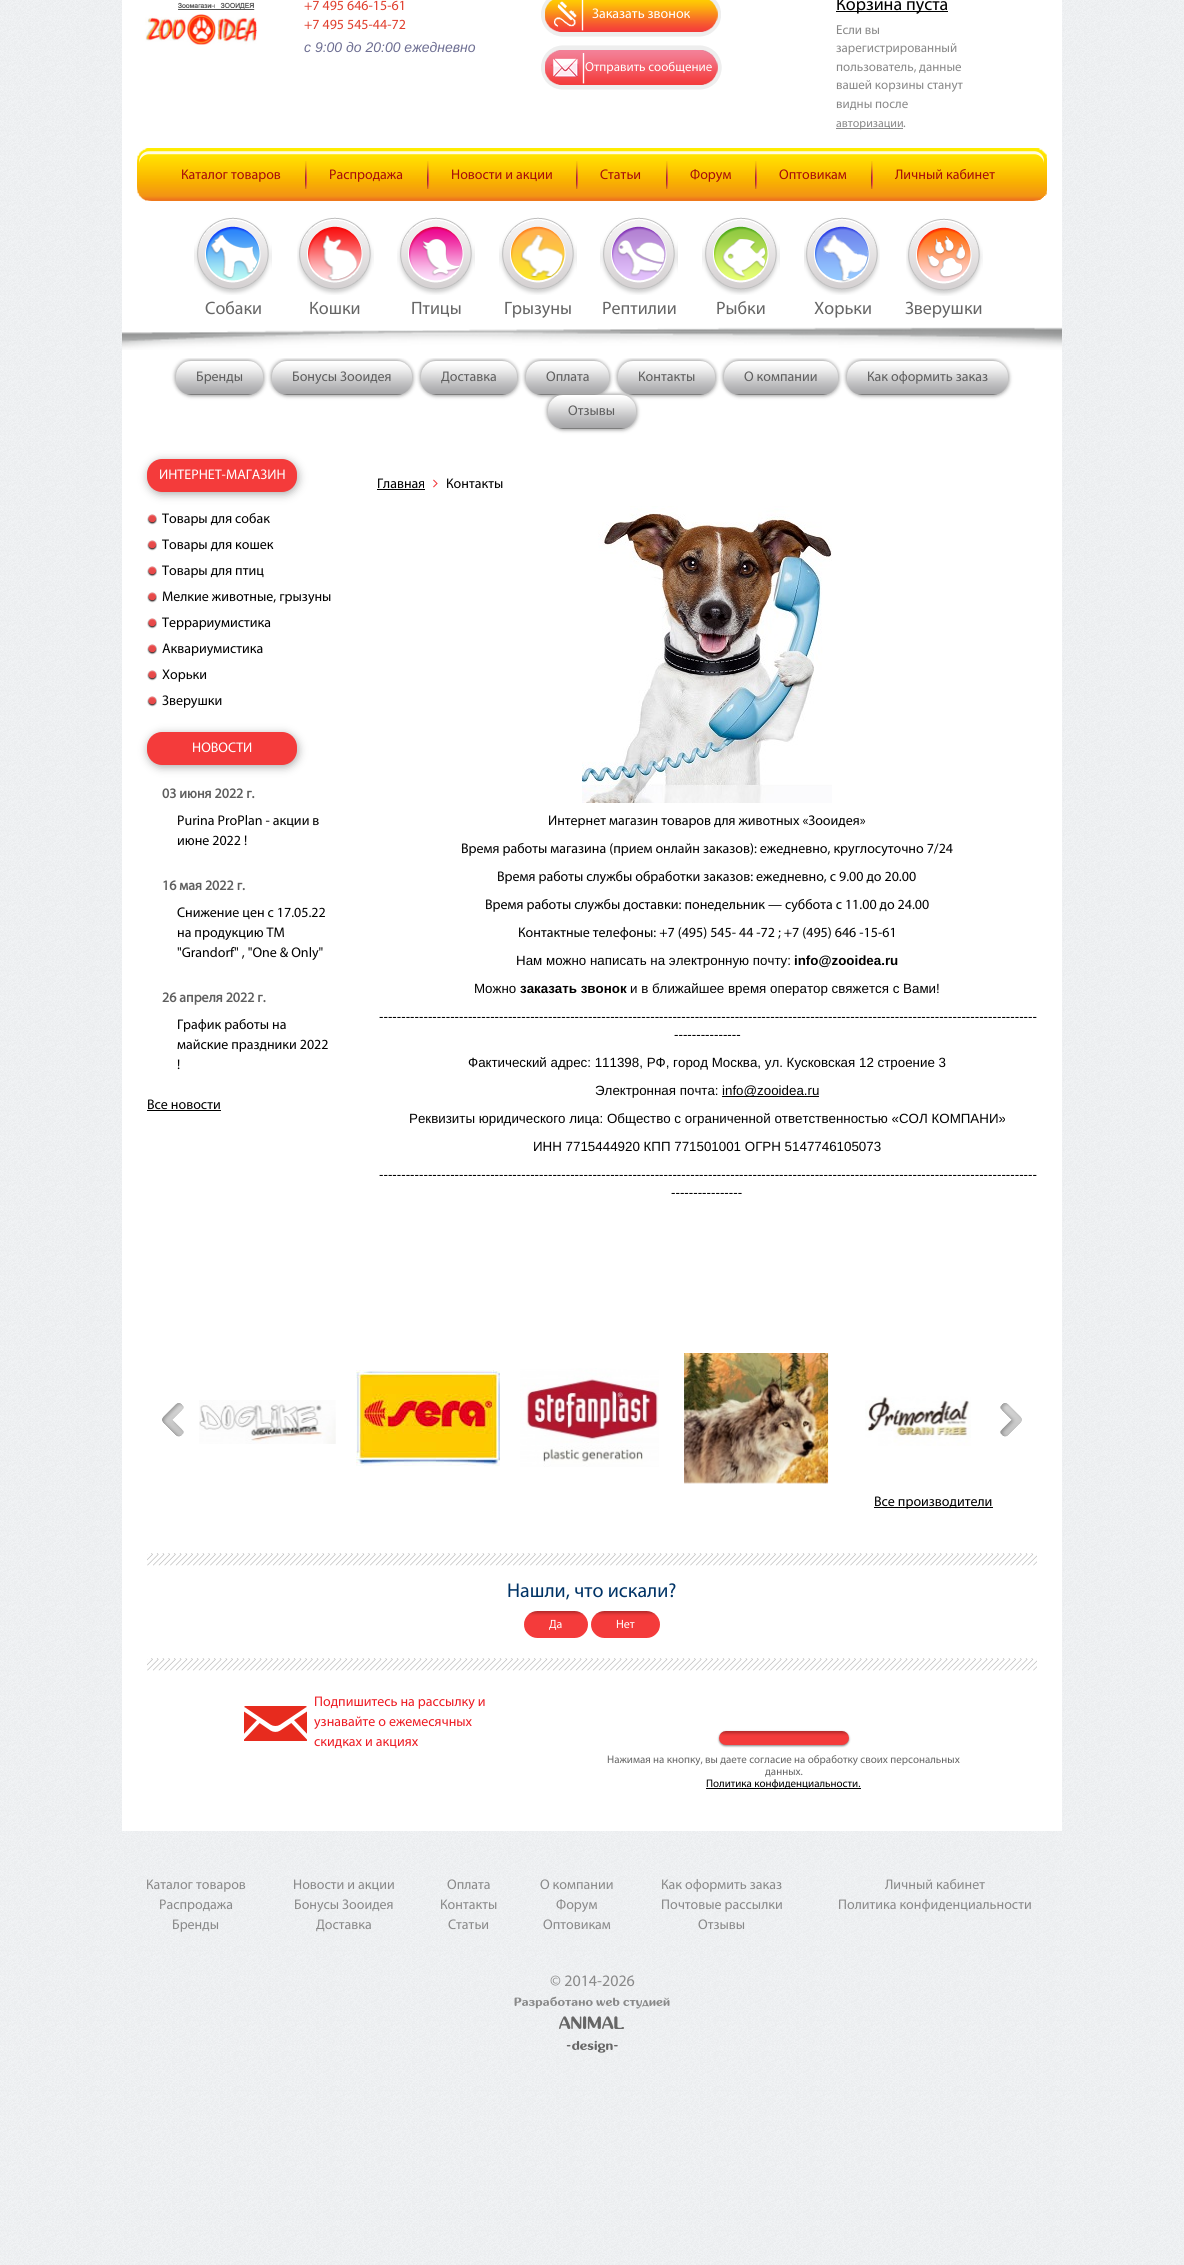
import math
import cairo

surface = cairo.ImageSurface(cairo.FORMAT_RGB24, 1184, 2265)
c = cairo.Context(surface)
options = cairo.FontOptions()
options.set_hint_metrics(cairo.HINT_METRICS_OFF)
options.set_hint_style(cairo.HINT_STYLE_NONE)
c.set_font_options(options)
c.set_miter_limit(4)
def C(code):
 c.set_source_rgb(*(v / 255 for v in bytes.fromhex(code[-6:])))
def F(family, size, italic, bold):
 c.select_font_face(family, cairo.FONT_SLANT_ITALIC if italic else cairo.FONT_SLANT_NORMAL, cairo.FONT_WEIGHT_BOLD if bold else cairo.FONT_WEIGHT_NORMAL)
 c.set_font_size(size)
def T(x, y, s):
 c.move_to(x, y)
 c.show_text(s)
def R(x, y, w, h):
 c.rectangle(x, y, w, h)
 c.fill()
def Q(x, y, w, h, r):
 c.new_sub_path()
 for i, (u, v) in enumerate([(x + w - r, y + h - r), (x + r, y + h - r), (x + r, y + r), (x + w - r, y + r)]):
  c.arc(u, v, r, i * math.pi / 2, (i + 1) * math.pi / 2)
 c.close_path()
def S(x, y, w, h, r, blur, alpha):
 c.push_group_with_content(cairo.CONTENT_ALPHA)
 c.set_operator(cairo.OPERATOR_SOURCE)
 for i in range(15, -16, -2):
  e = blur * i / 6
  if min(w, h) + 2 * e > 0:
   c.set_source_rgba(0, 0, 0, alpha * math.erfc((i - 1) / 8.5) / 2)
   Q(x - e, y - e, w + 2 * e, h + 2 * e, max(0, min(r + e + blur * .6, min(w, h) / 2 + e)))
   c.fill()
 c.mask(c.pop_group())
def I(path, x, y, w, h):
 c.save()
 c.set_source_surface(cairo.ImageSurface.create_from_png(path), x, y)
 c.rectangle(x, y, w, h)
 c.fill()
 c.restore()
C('ffffff')
c.paint()
I('1.png',0,0,1184,2265)
C('ffffff')
R(122,358,940,1473)
C('aaaaaa')
S(175,360,87,34,15,2,1)
S(177,362,87,34,15,2,1)
S(271,360,140,34,15,2,1)
S(273,362,140,34,15,2,1)
S(420,360,96,34,15,2,1)
S(422,362,96,34,15,2,1)
S(525,360,83,34,15,2,1)
S(527,362,83,34,15,2,1)
S(617,360,97,34,15,2,1)
S(619,362,97,34,15,2,1)
S(723,360,114,34,15,2,1)
S(725,362,114,34,15,2,1)
S(846,360,161,34,15,2,1)
S(848,362,161,34,15,2,1)
C('ffffff')
R(122,0,940,358)
I('2.png',122,327,940,23)
I('3.png',145,2,112,43)
F('Myriad',14,0,0)
C('e03e2d')
T(304,10,'+7 495 646-15-61')
T(304,29,'+7 495 545-44-72')
F('Liberation Sans',14,1,0)
C('6d6e92')
T(304,52,'c 9:00 до 20:00 ежедневно')
I('4.png',541,0,180,37)
F('Myriad',14,0,0)
C('ffffff')
T(592,18,'Заказать звонок')
I('5.png',541,45,181,45)
F('Myriad',13,0,0)
T(585,71,'Отправить сообщение')
C('000000')
R(836,11,112,1)
F('Myriad',18,0,0)
T(836,10,'Корзина пуста')
F('Myriad',13,0,0)
C('898989')
T(836,34,'Если вы')
T(836,52,'зарегистрированный')
T(836,71,'пользователь, данные')
T(836,89,'вашей корзины станут')
T(836,108,'видны после')
R(836,128,67,1)
F('Myriad',12,0,0)
T(836,127,'авторизации')
F('Myriad',13,0,0)
T(903,127,'.')
I('6.png',137,148,910,53)
I('7.png',137,148,15,53)
F('Myriad',14,0,0)
C('a70c0a')
T(181,179,'Каталог товаров')
I('8.png',305,161,2,28)
T(329,179,'Распродажа')
I('8.png',427,161,2,28)
T(451,179,'Новости и акции')
I('8.png',576,161,2,28)
T(600,179,'Статьи')
I('8.png',666,161,2,28)
T(690,179,'Форум')
I('8.png',755,161,2,28)
T(779,179,'Оптовикам')
I('8.png',871,161,2,28)
T(895,179,'Личный кабинет')
I('9.png',1032,148,15,53)
I('10.png',194,217,78,78)
F('Myriad',18,0,0)
C('666666')
T(205,314,'Собаки')
I('11.png',297,217,77,78)
T(309,314,'Кошки')
I('12.png',397,217,78,78)
T(411,314,'Птицы')
I('13.png',499,217,78,78)
T(504,314,'Грызуны')
I('14.png',600,217,78,78)
T(602,314,'Рептилии')
I('15.png',702,217,78,78)
T(716,314,'Рыбки')
I('16.png',804,217,76,78)
T(814,314,'Хорьки')
I('17.png',906,218,77,78)
T(905,314,'Зверушки')
I('18.png',176,361,87,34)
F('Myriad',14,0,0)
C('5e5e5e')
T(196,381,'Бренды')
I('19.png',272,361,140,34)
T(292,381,'Бонусы Зооидея')
I('20.png',421,361,96,34)
T(441,381,'Доставка')
I('21.png',526,361,83,34)
T(546,381,'Оплата')
I('22.png',618,361,97,34)
T(638,381,'Контакты')
I('23.png',724,361,114,34)
T(744,381,'О компании')
I('24.png',847,361,161,34)
T(867,381,'Как оформить заказ')
C('aaaaaa')
S(547,394,88,34,15,2,1)
S(549,396,88,34,15,2,1)
I('25.png',548,395,88,34)
C('5e5e5e')
T(568,415,'Отзывы')
C('aaaaaa')
S(148,461,150,33,15,4.5,1)
C('f43b3b')
Q(147,459,150,33,15)
c.fill()
C('ffffff')
T(159,479,'ИНТЕРНЕТ-МАГАЗИН')
I('26.png',147,514,10,11)
C('000000')
T(162,523,'Товары для собак')
I('26.png',147,540,10,11)
T(162,549,'Товары для кошек')
I('26.png',147,566,10,11)
T(162,575,'Товары для птиц')
I('26.png',147,592,10,11)
T(162,601,'Мелкие животные, грызуны')
I('26.png',147,618,10,11)
T(162,627,'Террариумистика')
I('26.png',147,644,10,11)
T(162,653,'Аквариумистика')
I('26.png',147,670,10,11)
T(162,679,'Хорьки')
I('26.png',147,696,10,11)
T(162,705,'Зверушки')
C('aaaaaa')
S(148,734,150,33,15,4.5,1)
C('f43b3b')
Q(147,732,150,33,15)
c.fill()
C('ffffff')
T(192,752,'НОВОСТИ')
F('Myriad',14,0,1)
C('5e5e5e')
T(162,798,'03 июня 2022 г.')
F('Myriad',14,0,0)
C('000000')
T(177,825,'Purina ProPlan - акции в')
T(177,845,'июне 2022 !')
F('Myriad',14,0,1)
C('5e5e5e')
T(162,890,'16 мая 2022 г.')
F('Myriad',14,0,0)
C('000000')
T(177,917,'Снижение цен с 17.05.22')
T(177,937,'на продукцию ТМ')
T(177,957,'"Grandorf" , "One & Only"')
F('Myriad',14,0,1)
C('5e5e5e')
T(162,1002,'26 апреля 2022 г.')
F('Myriad',14,0,0)
C('000000')
T(177,1029,'График работы на')
T(177,1049,'майские праздники 2022')
T(177,1069,'!')
T(147,1109,'Все новости')
R(147,1110,74,1)
T(377,488,'Главная')
R(377,489,48,1)
I('27.png',433,479,5,9)
T(446,488,'Контакты')
I('28.png',582,506,250,297)
T(548,825,'Интернет магазин товаров для животных «Зооидея»')
T(461,853,'Время работы магазина (прием онлайн заказов): ежедневно, круглосуточно 7/24')
T(497,881,'Время работы службы обработки заказов: ежедневно, с 9.00 до 20.00')
T(485,909,'Время работы службы доставки: понедельник — суббота с 11.00 до 24.00')
T(518,937,'Контактные телефоны: +7 (495) 545- 44 -72 ; +7 (495) 646 -15-61')
F('Liberation Sans',13.35,0,0)
T(516,965,'Нам можно написать на электронную почту:')
F('Liberation Sans',13.35,0,1)
T(794,965,'info@zooidea.ru')
F('Liberation Sans',13.35,0,0)
T(474,993,'Можно')
F('Liberation Sans',13.35,0,1)
T(520,993,'заказать звонок')
F('Liberation Sans',13.35,0,0)
T(630,993,'и в ближайшее время оператор свяжется с Вами!')
T(379,1021,'----------------------------------------------------------------------------------------------------------------------------------------------------')
T(674,1039,'---------------')
T(468,1067,'Фактический адрес: 111398, РФ, город Москва, ул. Кусковская 12 строение 3')
T(595,1095,'Электронная почта:')
R(722,1096,97,1)
T(722,1095,'info@zooidea.ru')
T(409,1123,'Реквизиты юридического лица: Общество с ограниченной ответственностью «СОЛ КОМПАНИ»')
T(533,1151,'ИНН 7715444920 КПП 771501001 ОГРН 5147746105073')
T(379,1179,'----------------------------------------------------------------------------------------------------------------------------------------------------')
T(671,1197,'----------------')
I('29.png',199,1400,137,44)
I('30.png',356,1370,144,96)
I('31.png',520,1368,139,99)
I('32.png',684,1353,145,131)
I('33.png',865,1396,106,50)
I('34.png',162,1403,22,34)
I('35.png',1000,1403,22,34)
R(874,1507,119,1)
F('Myriad',14,0,0)
T(874,1506,'Все производители')
I('36.png',147,1553,890,13)
F('Myriad',20,0,0)
C('003366')
T(507,1597,'Нашли, что искали?')
I('37.png',524,1611,64,27)
F('Myriad',12,0,0)
C('ffffff')
T(549,1628,'Да')
I('38.png',591,1611,69,27)
T(616,1628,'Нет')
I('36.png',147,1658,890,13)
I('39.png',244,1706,63,35)
F('Myriad',14,0,0)
C('ed1c24')
T(314,1706,'Подпишитесь на рассылку и')
T(314,1726,'узнавайте о ежемесячных')
T(314,1746,'скидках и акциях')
C('888888')
S(719,1732,130,14,7,1,1)
I('40.png',719,1731,130,14)
F('Myriad',11,0,0)
C('666666')
T(607,1763,'Нажимая на кнопку, вы даете согласие на обработку своих персональных')
T(765,1775,'данных.')
C('000000')
R(706,1788,155,1)
T(706,1787,'Политика конфиденциальности.')
F('Myriad',14,0,0)
C('898989')
T(146,1889,'Каталог товаров')
T(159,1909,'Распродажа')
T(172,1929,'Бренды')
T(293,1889,'Новости и акции')
T(294,1909,'Бонусы Зооидея')
T(316,1929,'Доставка')
T(447,1889,'Оплата')
T(440,1909,'Контакты')
T(448,1929,'Статьи')
T(540,1889,'О компании')
T(556,1909,'Форум')
T(543,1929,'Оптовикам')
T(661,1889,'Как оформить заказ')
T(661,1909,'Почтовые рассылки')
T(698,1929,'Отзывы')
T(885,1889,'Личный кабинет')
T(838,1909,'Политика конфиденциальности')
F('Myriad',16,0,0)
T(550,1986,'© 2014-2026')
F('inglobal',12,0,1)
T(514,2006,'Разработано web студией')
F('inglobal',18,0,1)
C('666666')
T(559,2029,'ANIMAL')
F('inglobal',13,0,1)
T(566,2050,'-design-')
surface.write_to_png('o.png')
